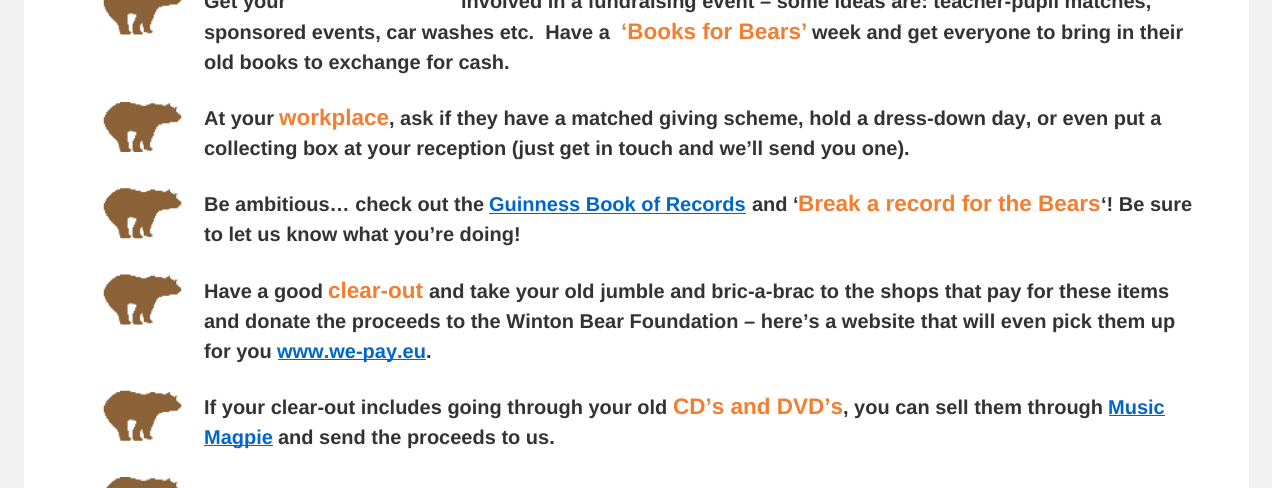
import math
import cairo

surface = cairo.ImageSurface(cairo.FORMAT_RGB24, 1272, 488)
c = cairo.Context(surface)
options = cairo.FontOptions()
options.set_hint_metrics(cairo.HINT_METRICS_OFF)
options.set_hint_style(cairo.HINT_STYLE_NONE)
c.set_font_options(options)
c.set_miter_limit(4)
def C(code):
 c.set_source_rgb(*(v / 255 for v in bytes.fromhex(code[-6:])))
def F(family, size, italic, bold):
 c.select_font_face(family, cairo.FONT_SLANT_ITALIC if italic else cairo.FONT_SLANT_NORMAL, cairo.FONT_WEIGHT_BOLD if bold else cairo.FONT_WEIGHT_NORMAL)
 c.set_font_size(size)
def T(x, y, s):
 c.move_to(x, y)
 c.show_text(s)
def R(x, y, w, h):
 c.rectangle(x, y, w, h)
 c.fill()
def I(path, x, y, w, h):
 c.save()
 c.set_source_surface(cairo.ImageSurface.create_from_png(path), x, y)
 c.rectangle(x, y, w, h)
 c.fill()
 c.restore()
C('f1f1f1')
c.paint()
C('ffffff')
R(24,0,1225,488)
I('1.png',103,0,79,35)
F('Liberation Sans',20,0,1)
C('333333')
T(204,8,'Get your')
T(461,8,'involved in a fundraising event – some ideas are: teacher-pupil matches,')
T(204,39,'sponsored events, car washes etc.  Have a')
F('Liberation Sans',22.5,0,1)
C('f47d30')
T(621,39,'‘Books for Bears’')
F('Liberation Sans',20,0,1)
C('333333')
T(812,39,'week and get everyone to bring in their')
T(204,69,'old books to exchange for cash.')
I('2.png',103,102,79,50)
T(204,125,'At your')
F('Liberation Sans',22.5,0,1)
C('f47d30')
T(279,125,'workplace')
F('Liberation Sans',20,0,1)
C('333333')
T(389,125,', ask if they have a matched giving scheme, hold a dress-down day, or even put a')
T(204,155,'collecting box at your reception (just get in touch and we’ll send you one).')
I('3.png',103,188,79,51)
T(204,211,'Be ambitious… check out the')
C('0066cc')
T(489,211,'Guinness Book of Records')
R(489,213,257,1)
C('333333')
T(752,211,'and ‘')
F('Liberation Sans',22.5,0,1)
C('f47d30')
T(798,211,'Break a record for the Bears')
F('Liberation Sans',20,0,1)
C('333333')
T(1101,211,'‘! Be sure')
T(204,241,'to let us know what you’re doing!')
I('4.png',103,274,79,51)
T(204,298,'Have a good')
F('Liberation Sans',22.5,0,1)
C('f47d30')
T(328,298,'clear-out')
F('Liberation Sans',20,0,1)
C('333333')
T(429,298,'and take your old jumble and bric-a-brac to the shops that pay for these items')
T(204,328,'and donate the proceeds to the Winton Bear Foundation – here’s a website that will even pick them up')
T(204,358,'for you')
C('0066cc')
R(278,359,148,1)
T(277,358,'www.we-pay.eu')
C('333333')
T(426,358,'.')
I('5.png',103,390,79,51)
T(204,414,'If your clear-out includes going through your old')
F('Liberation Sans',22.5,0,1)
C('f47d30')
T(673,414,'CD’s and DVD’s')
F('Liberation Sans',20,0,1)
C('333333')
T(843,414,', you can sell them through')
C('0066cc')
T(1108,414,'Music')
R(1109,415,56,1)
R(204,445,69,1)
T(204,444,'Magpie')
C('333333')
T(278,444,'and send the proceeds to us.')
I('6.png',106,477,72,11)
surface.write_to_png('o.png')
